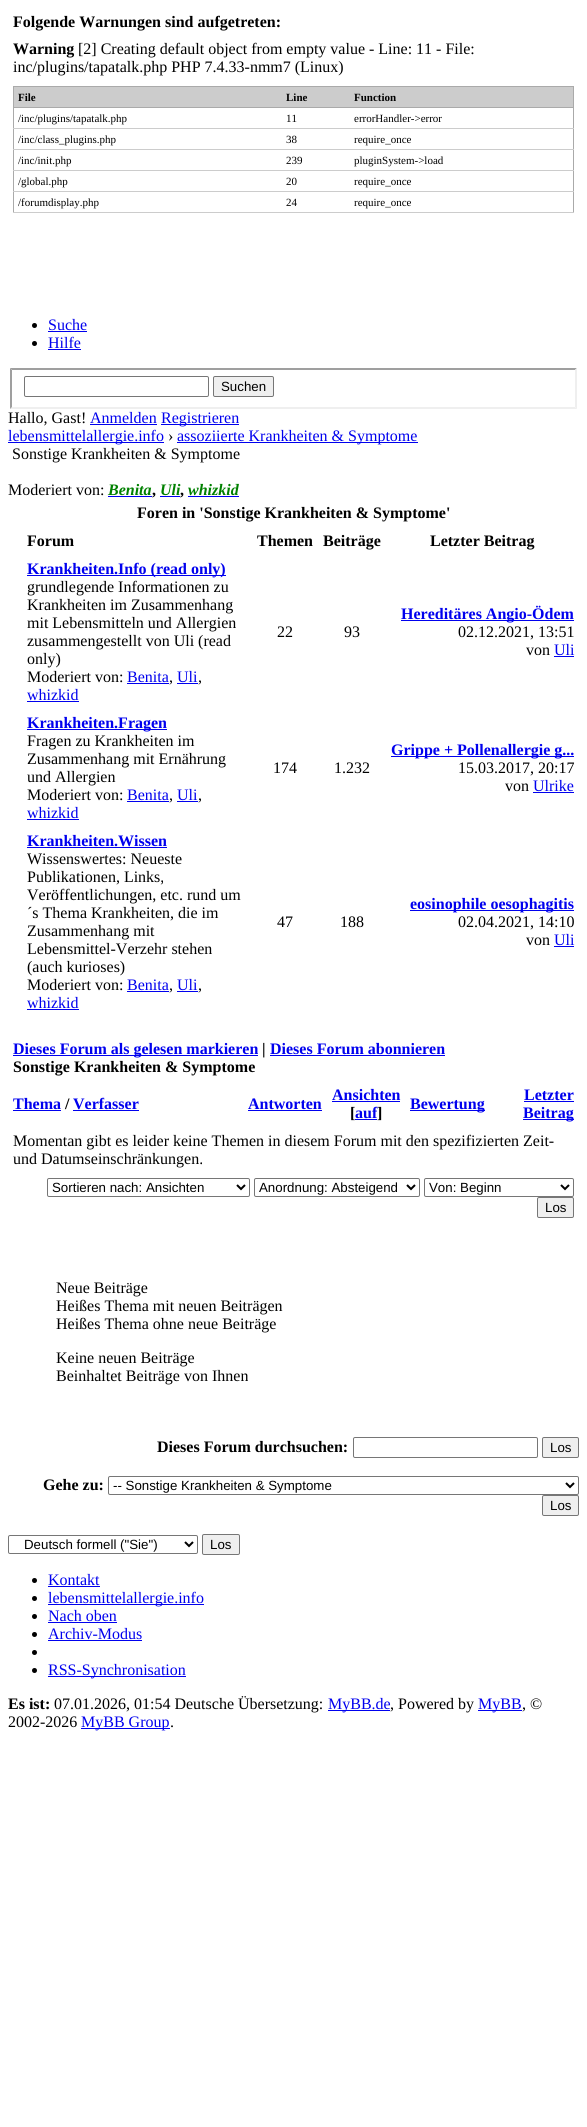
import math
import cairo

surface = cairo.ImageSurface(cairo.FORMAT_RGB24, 587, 2127)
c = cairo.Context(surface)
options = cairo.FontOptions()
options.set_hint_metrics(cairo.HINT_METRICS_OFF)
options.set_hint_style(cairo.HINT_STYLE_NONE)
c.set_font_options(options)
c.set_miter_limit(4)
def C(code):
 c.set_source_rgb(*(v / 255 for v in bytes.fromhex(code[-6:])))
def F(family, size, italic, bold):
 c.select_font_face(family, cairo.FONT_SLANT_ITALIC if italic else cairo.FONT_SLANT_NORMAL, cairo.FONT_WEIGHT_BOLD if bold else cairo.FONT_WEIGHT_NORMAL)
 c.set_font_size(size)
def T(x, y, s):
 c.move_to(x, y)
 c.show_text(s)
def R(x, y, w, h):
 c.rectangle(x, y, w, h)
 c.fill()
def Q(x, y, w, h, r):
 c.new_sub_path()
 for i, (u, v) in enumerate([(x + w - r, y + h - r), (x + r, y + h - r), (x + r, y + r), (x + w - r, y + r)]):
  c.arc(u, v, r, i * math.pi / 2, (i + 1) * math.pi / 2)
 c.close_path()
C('ffffff')
c.paint()
F('Liberation Serif',16,0,1)
C('000000')
T(13,27,'Folgende Warnungen sind aufgetreten:')
T(13,54,'Warning')
F('Liberation Serif',16,0,0)
T(78,54,'[2] Creating default object from empty value - Line: 11 - File:')
T(13,72,'inc/plugins/tapatalk.php PHP 7.4.33-nmm7 (Linux)')
C('aaaaaa')
R(13,86,561,1)
R(573,86,1,127)
R(13,86,1,127)
C('cccccc')
R(14,87,559,20)
F('Liberation Serif',11,0,1)
C('000000')
T(18,101,'File')
T(286,101,'Line')
C('aaaaaa')
R(13,107,561,1)
C('000000')
T(354,101,'Function')
F('Liberation Serif',11,0,0)
T(18,122,'/inc/plugins/tapatalk.php')
T(286,122,'11')
C('cccccc')
R(13,128,561,1)
C('000000')
T(354,122,'errorHandler->error')
T(18,143,'/inc/class_plugins.php')
T(286,143,'38')
C('cccccc')
R(13,149,561,1)
C('000000')
T(354,143,'require_once')
T(18,164,'/inc/init.php')
T(286,164,'239')
C('cccccc')
R(13,170,561,1)
C('000000')
T(354,164,'pluginSystem->load')
T(18,185,'/global.php')
T(286,185,'20')
C('cccccc')
R(13,191,561,1)
C('000000')
T(354,185,'require_once')
T(18,206,'/forumdisplay.php')
T(286,206,'24')
C('cccccc')
R(13,212,561,1)
C('000000')
T(354,206,'require_once')
c.new_path()
c.arc(34.5,325.5,2.5,0,2 * math.pi)
c.fill()
F('Liberation Serif',16,0,0)
C('0000ee')
T(48,330,'Suche')
R(48,331,39,1)
C('000000')
c.new_path()
c.arc(34.5,343.5,2.5,0,2 * math.pi)
c.fill()
C('0000ee')
T(48,348,'Hilfe')
R(48,349,33,1)
C('9f9f9f')
c.new_path()
c.move_to(10,368)
c.line_to(577,368)
c.line_to(575,370)
c.line_to(12,370)
c.close_path()
c.fill()
C('efefef')
c.new_path()
c.move_to(577,368)
c.line_to(577,409)
c.line_to(575,407)
c.line_to(575,370)
c.close_path()
c.fill()
c.new_path()
c.move_to(577,409)
c.line_to(10,409)
c.line_to(12,407)
c.line_to(575,407)
c.close_path()
c.fill()
C('9f9f9f')
c.new_path()
c.move_to(10,409)
c.line_to(10,368)
c.line_to(12,370)
c.line_to(12,407)
c.close_path()
c.fill()
Q(24.5,376.5,184,20,1.5)
C('767676')
c.set_line_width(1)
c.stroke()
C('efefef')
Q(213.5,376.5,60,20,1.5)
c.fill_preserve()
C('767676')
c.stroke()
F('Liberation Sans',13.3,0,0)
C('000000')
T(221,391,'Suchen')
F('Liberation Serif',16,0,0)
T(8,423,'Hallo, Gast!')
C('0000ee')
T(90,423,'Anmelden')
R(90,424,67,1)
R(161,424,78,1)
T(161,423,'Registrieren')
R(8,442,156,1)
T(8,441,'lebensmittelallergie.info')
C('000000')
T(168,441,'›')
C('0000ee')
R(177,442,241,1)
T(177,441,'assoziierte Krankheiten & Symptome')
C('000000')
T(12,459,'Sonstige Krankheiten & Symptome')
T(8,495,'Moderiert von:')
F('Liberation Serif',16,1,1)
C('008000')
T(108,495,'Benita')
F('Liberation Serif',16,0,1)
C('000000')
T(152,495,',')
C('0000ee')
R(108,496,44,1)
F('Liberation Serif',16,1,1)
C('008000')
T(160,495,'Uli')
F('Liberation Serif',16,0,1)
C('000000')
T(180,495,',')
C('0000ee')
R(160,496,20,1)
R(188,496,51,1)
F('Liberation Serif',16,1,1)
C('008000')
T(188,495,'whizkid')
F('Liberation Serif',16,0,1)
C('000000')
T(137,518,'Foren in \'Sonstige Krankheiten & Symptome\'')
T(27,546,'Forum')
T(257,546,'Themen')
T(323,546,'Beiträge')
T(430,546,'Letzter Beitrag')
C('0000ee')
R(27,575,199,1)
T(27,574,'Krankheiten.Info (read only)')
F('Liberation Serif',16,0,0)
C('000000')
T(27,592,'grundlegende Informationen zu')
T(27,610,'Krankheiten im Zusammenhang')
T(27,628,'mit Lebensmitteln und Allergien')
T(27,646,'zusammengestellt von Uli (read')
T(27,664,'only)')
T(27,682,'Moderiert von:')
C('0000ee')
T(127,682,'Benita')
R(127,683,42,1)
C('000000')
T(169,682,',')
C('0000ee')
T(177,682,'Uli')
R(177,683,21,1)
C('000000')
T(198,682,',')
C('0000ee')
T(27,700,'whizkid')
R(27,701,52,1)
C('000000')
T(277,637,'22')
T(344,637,'93')
C('0000ee')
R(401,620,173,1)
F('Liberation Serif',16,0,1)
T(401,619,'Hereditäres Angio-Ödem')
F('Liberation Serif',16,0,0)
C('000000')
T(458,637,'02.12.2021, 13:51')
T(526,655,'von')
C('0000ee')
R(554,656,20,1)
T(554,655,'Uli')
R(27,729,140,1)
F('Liberation Serif',16,0,1)
T(27,728,'Krankheiten.Fragen')
F('Liberation Serif',16,0,0)
C('000000')
T(27,746,'Fragen zu Krankheiten im')
T(27,764,'Zusammenhang mit Ernährung')
T(27,782,'und Allergien')
T(27,800,'Moderiert von:')
C('0000ee')
T(127,800,'Benita')
R(127,801,42,1)
C('000000')
T(169,800,',')
C('0000ee')
T(177,800,'Uli')
R(177,801,21,1)
C('000000')
T(198,800,',')
C('0000ee')
T(27,818,'whizkid')
R(27,819,52,1)
C('000000')
T(273,773,'174')
T(334,773,'1.232')
C('0000ee')
R(391,756,183,1)
F('Liberation Serif',16,0,1)
T(391,755,'Grippe + Pollenallergie g...')
F('Liberation Serif',16,0,0)
C('000000')
T(458,773,'15.03.2017, 20:17')
T(505,791,'von')
C('0000ee')
R(533,792,41,1)
T(533,791,'Ulrike')
F('Liberation Serif',16,0,1)
T(27,846,'Krankheiten.Wissen')
R(27,847,140,1)
F('Liberation Serif',16,0,0)
C('000000')
T(27,864,'Wissenswertes: Neueste')
T(27,882,'Publikationen, Links,')
T(27,900,'Veröffentlichungen, etc. rund um')
T(27,918,'´s Thema Krankheiten, die im')
T(27,936,'Zusammenhang mit')
T(27,954,'Lebensmittel-Verzehr stehen')
T(27,972,'(auch kurioses)')
T(27,990,'Moderiert von:')
C('0000ee')
T(127,990,'Benita')
R(127,991,42,1)
C('000000')
T(169,990,',')
C('0000ee')
T(177,990,'Uli')
R(177,991,21,1)
C('000000')
T(198,990,',')
C('0000ee')
T(27,1008,'whizkid')
R(27,1009,52,1)
C('000000')
T(277,927,'47')
T(340,927,'188')
C('0000ee')
R(410,910,164,1)
F('Liberation Serif',16,0,1)
T(410,909,'eosinophile oesophagitis')
F('Liberation Serif',16,0,0)
C('000000')
T(458,927,'02.04.2021, 14:10')
T(526,945,'von')
C('0000ee')
R(554,946,20,1)
T(554,945,'Uli')
R(13,1055,245,1)
F('Liberation Serif',16,0,1)
T(13,1054,'Dieses Forum als gelesen markieren')
C('000000')
T(262,1054,'|')
C('0000ee')
T(270,1054,'Dieses Forum abonnieren')
R(270,1055,175,1)
C('000000')
T(13,1072,'Sonstige Krankheiten & Symptome')
C('0000ee')
T(13,1109,'Thema')
R(13,1110,48,1)
C('000000')
T(65,1109,'/')
C('0000ee')
T(73,1109,'Verfasser')
R(73,1110,66,1)
T(248,1109,'Antworten')
R(248,1110,74,1)
T(332,1100,'Ansichten')
R(332,1101,68,1)
C('000000')
T(350,1118,'[')
C('0000ee')
R(355,1119,22,1)
T(355,1118,'auf')
C('000000')
T(377,1118,']')
C('0000ee')
R(410,1110,75,1)
T(410,1109,'Bewertung')
T(524,1100,'Letzter')
R(524,1101,50,1)
R(523,1119,51,1)
T(523,1118,'Beitrag')
F('Liberation Serif',16,0,0)
C('000000')
T(13,1146,'Momentan gibt es leider keine Themen in diesem Forum mit den spezifizierten Zeit-')
T(13,1164,'und Datumseinschränkungen.')
Q(47.5,1178.5,202,18,1.5)
C('767676')
c.stroke()
c.new_path()
c.move_to(237,1185)
c.line_to(241,1189)
c.line_to(245,1185)
C('000000')
c.set_line_width(2)
c.stroke()
F('Liberation Sans',13.3,0,0)
T(52,1192,'Sortieren nach: Ansichten')
Q(254.5,1178.5,165,18,1.5)
C('767676')
c.set_line_width(1)
c.stroke()
c.new_path()
c.move_to(407,1185)
c.line_to(411,1189)
c.line_to(415,1185)
C('000000')
c.set_line_width(2)
c.stroke()
T(259,1192,'Anordnung: Absteigend')
Q(424.5,1178.5,149,18,1.5)
C('767676')
c.set_line_width(1)
c.stroke()
c.new_path()
c.move_to(561,1185)
c.line_to(565,1189)
c.line_to(569,1185)
C('000000')
c.set_line_width(2)
c.stroke()
T(429,1192,'Von: Beginn')
C('efefef')
Q(537.5,1197.5,36,20,1.5)
c.fill_preserve()
C('767676')
c.set_line_width(1)
c.stroke()
C('000000')
T(545,1212,'Los')
F('Liberation Serif',16,0,0)
T(56,1293,'Neue Beiträge')
T(56,1311,'Heißes Thema mit neuen Beiträgen')
T(56,1329,'Heißes Thema ohne neue Beiträge')
T(56,1363,'Keine neuen Beiträge')
T(56,1381,'Beinhaltet Beiträge von Ihnen')
F('Liberation Serif',16,0,1)
T(157,1452,'Dieses Forum durchsuchen:')
Q(353.5,1437.5,184,20,1.5)
C('767676')
c.stroke()
C('efefef')
Q(542.5,1437.5,36,20,1.5)
c.fill_preserve()
C('767676')
c.stroke()
F('Liberation Sans',13.3,0,0)
C('000000')
T(550,1452,'Los')
F('Liberation Serif',16,0,1)
T(43,1490,'Gehe zu:')
Q(108.5,1476.5,470,18,1.5)
C('767676')
c.stroke()
c.new_path()
c.move_to(566,1483)
c.line_to(570,1487)
c.line_to(574,1483)
C('000000')
c.set_line_width(2)
c.stroke()
F('Liberation Sans',13.3,0,0)
T(113,1490,'-- Sonstige Krankheiten & Symptome')
C('efefef')
Q(542.5,1495.5,36,20,1.5)
c.fill_preserve()
C('767676')
c.set_line_width(1)
c.stroke()
C('000000')
T(550,1510,'Los')
Q(8.5,1535.5,189,18,1.5)
C('767676')
c.stroke()
c.new_path()
c.move_to(185,1542)
c.line_to(189,1546)
c.line_to(193,1542)
C('000000')
c.set_line_width(2)
c.stroke()
T(24,1549,'Deutsch formell ("Sie")')
C('efefef')
Q(202.5,1534.5,37,20,1.5)
c.fill_preserve()
C('767676')
c.set_line_width(1)
c.stroke()
C('000000')
T(210,1549,'Los')
c.new_path()
c.arc(34.5,1580.5,2.5,0,2 * math.pi)
c.fill()
F('Liberation Serif',16,0,0)
C('0000ee')
T(48,1585,'Kontakt')
R(48,1586,52,1)
C('000000')
c.new_path()
c.arc(34.5,1598.5,2.5,0,2 * math.pi)
c.fill()
C('0000ee')
R(48,1604,156,1)
T(48,1603,'lebensmittelallergie.info')
C('000000')
c.new_path()
c.arc(34.5,1616.5,2.5,0,2 * math.pi)
c.fill()
C('0000ee')
T(48,1621,'Nach oben')
R(48,1622,69,1)
C('000000')
c.new_path()
c.arc(34.5,1634.5,2.5,0,2 * math.pi)
c.fill()
C('0000ee')
T(48,1639,'Archiv-Modus')
R(48,1640,94,1)
C('000000')
c.new_path()
c.arc(34.5,1652.5,2.5,0,2 * math.pi)
c.fill()
c.arc(34.5,1670.5,2.5,0,2 * math.pi)
c.fill()
C('0000ee')
R(48,1676,138,1)
T(48,1675,'RSS-Synchronisation')
F('Liberation Serif',16,0,1)
C('000000')
T(8,1709,'Es ist:')
F('Liberation Serif',16,0,0)
T(54,1709,'07.01.2026, 01:54 Deutsche Übersetzung:')
C('0000ee')
R(328,1710,62,1)
T(328,1709,'MyBB.de')
C('000000')
T(390,1709,', Powered by')
C('0000ee')
R(478,1710,44,1)
T(478,1709,'MyBB')
C('000000')
T(522,1709,', ©')
T(8,1727,'2002-2026')
C('0000ee')
R(81,1728,89,1)
T(81,1727,'MyBB Group')
C('000000')
T(170,1727,'.')
surface.write_to_png('o.png')
